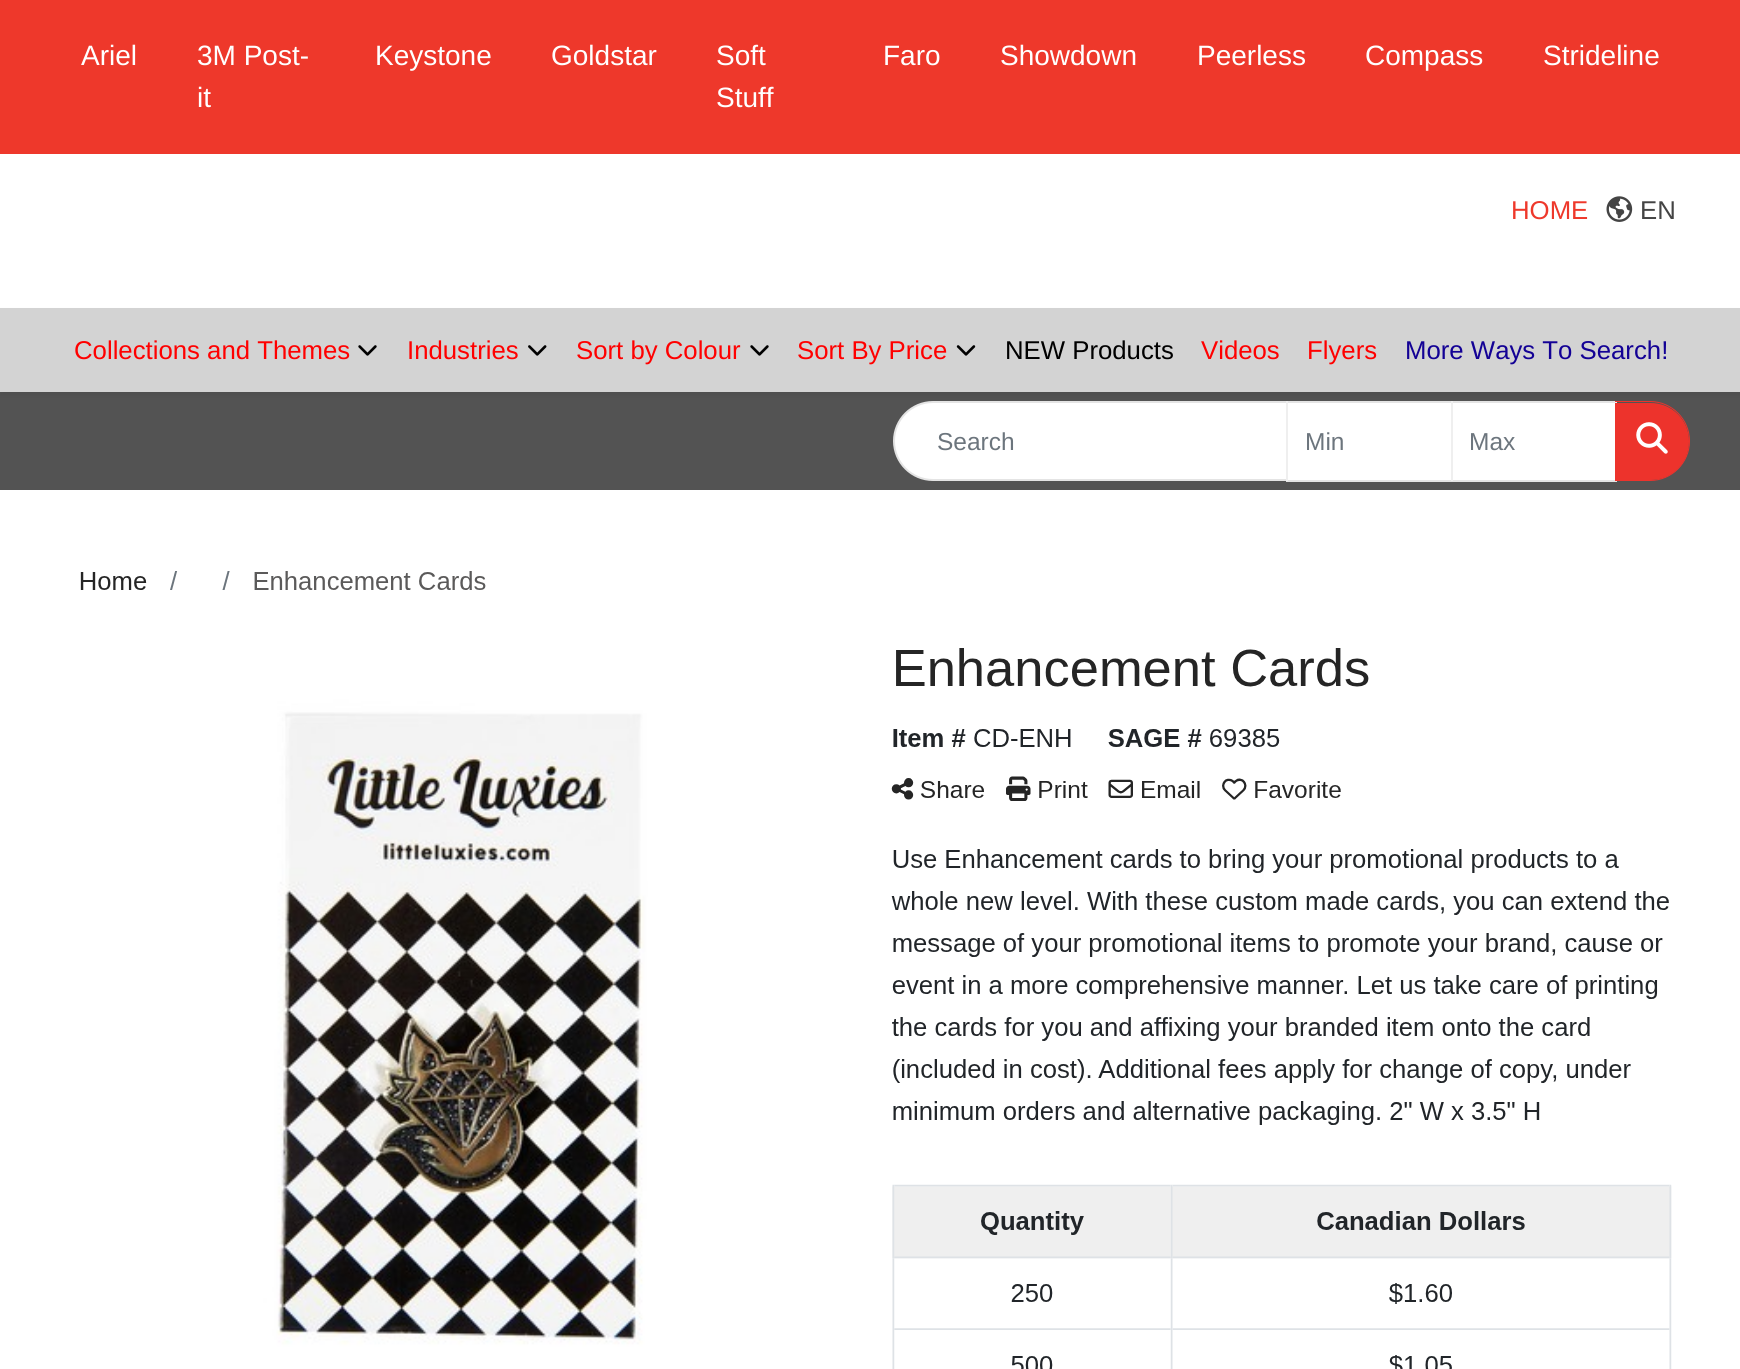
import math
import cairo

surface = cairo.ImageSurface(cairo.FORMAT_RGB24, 1740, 1369)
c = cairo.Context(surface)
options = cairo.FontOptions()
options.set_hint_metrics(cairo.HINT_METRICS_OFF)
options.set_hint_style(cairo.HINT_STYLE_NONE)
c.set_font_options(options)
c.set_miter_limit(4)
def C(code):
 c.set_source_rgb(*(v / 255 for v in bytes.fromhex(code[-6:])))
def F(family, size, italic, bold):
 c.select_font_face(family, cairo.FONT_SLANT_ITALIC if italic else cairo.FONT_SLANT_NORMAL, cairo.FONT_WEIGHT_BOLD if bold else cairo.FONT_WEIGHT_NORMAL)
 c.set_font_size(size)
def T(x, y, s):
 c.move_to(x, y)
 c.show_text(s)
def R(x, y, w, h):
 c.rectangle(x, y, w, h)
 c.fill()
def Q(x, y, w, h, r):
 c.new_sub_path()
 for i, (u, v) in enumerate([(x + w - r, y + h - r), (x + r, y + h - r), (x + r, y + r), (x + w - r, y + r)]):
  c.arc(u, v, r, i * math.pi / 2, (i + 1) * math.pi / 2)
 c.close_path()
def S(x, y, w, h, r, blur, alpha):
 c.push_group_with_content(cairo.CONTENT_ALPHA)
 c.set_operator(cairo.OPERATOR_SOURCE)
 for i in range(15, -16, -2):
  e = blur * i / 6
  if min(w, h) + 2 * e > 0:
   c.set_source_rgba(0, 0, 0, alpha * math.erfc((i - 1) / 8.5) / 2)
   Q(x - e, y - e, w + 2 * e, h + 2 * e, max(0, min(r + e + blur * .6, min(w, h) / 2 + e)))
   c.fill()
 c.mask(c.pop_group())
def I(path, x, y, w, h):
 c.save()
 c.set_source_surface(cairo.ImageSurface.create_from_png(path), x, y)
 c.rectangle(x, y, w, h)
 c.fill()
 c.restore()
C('ffffff')
c.paint()
C('ee382b')
R(0,0,1740,154)
F('Liberation Sans',28,0,0)
C('ffffff')
T(81,65,'Ariel')
T(197,65,'3M Post-')
T(197,107,'it')
T(375,65,'Keystone')
T(551,65,'Goldstar')
T(716,65,'Soft')
T(716,107,'Stuff')
T(883,65,'Faro')
T(1000,65,'Showdown')
T(1197,65,'Peerless')
T(1365,65,'Compass')
T(1543,65,'Strideline')
F('Liberation Sans',25.75,0,0)
C('ee382b')
T(1511,219,'HOME')
I('1.png',1606,196,27,26)
C('444444')
T(1640,219,'EN')
C('535353')
R(0,392,1740,98)
C('000000')
S(0,312,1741,84,0,3.5,.07)
C('d3d3d3')
R(0,308,1740,84)
C('ff0000')
T(74,359,'Collections and Themes')
I('2.png',358,345,19,11)
T(407,359,'Industries')
I('3.png',528,345,19,11)
T(576,359,'Sort by Colour')
I('2.png',750,345,19,11)
T(797,359,'Sort By Price')
I('4.png',956,345,20,11)
C('000000')
T(1005,359,'NEW Products')
C('ff0000')
T(1201,359,'Videos')
T(1307,359,'Flyers')
C('130195')
T(1405,359,'More Ways To Search!')
C('ffffff')
c.new_path()
c.move_to(933,402)
c.line_to(1287,402)
c.line_to(1287,480)
c.line_to(933,480)
c.curve_to(911.5,480,894,462.5,894,441)
c.curve_to(894,419.5,911.5,402,933,402)
c.close_path()
c.fill_preserve()
C('e4e4e4')
c.stroke()
F('Liberation Sans',24.5,0,0)
C('6c757d')
T(937,450,'Search')
C('ffffff')
R(1288,403,163,77)
C('e4e4e4')
R(1286,401,331,2)
R(1286,480,331,2)
C('efefef')
R(1286,401,2,80)
C('6c757d')
T(1305,450,'Min')
C('ffffff')
R(1453,403,162,77)
C('efefef')
R(1615,401,2,2)
R(1451,401,2,80)
C('6c757d')
T(1469,450,'Max')
C('ed332c')
c.new_path()
c.move_to(1615,403)
c.line_to(1650.5,403)
c.curve_to(1672,403,1689,420,1689,441.5)
c.curve_to(1689,463,1672,480,1650.5,480)
c.line_to(1615,480)
c.close_path()
c.fill()
c.set_fill_rule(cairo.FILL_RULE_EVEN_ODD)
c.new_path()
c.move_to(1615,401)
c.line_to(1650,401)
c.curve_to(1672,401,1690,419,1690,441)
c.curve_to(1690,463,1672,481,1650,481)
c.line_to(1615,481)
c.close_path()
c.move_to(1615,402)
c.line_to(1650,402)
c.curve_to(1672,402,1689,420,1689,441)
c.curve_to(1689,462,1672,480,1650,480)
c.line_to(1615,480)
c.close_path()
c.fill()
I('5.png',1636,422,32,32)
I('6.png',80,571,1592,798)
surface.write_to_png('o.png')
